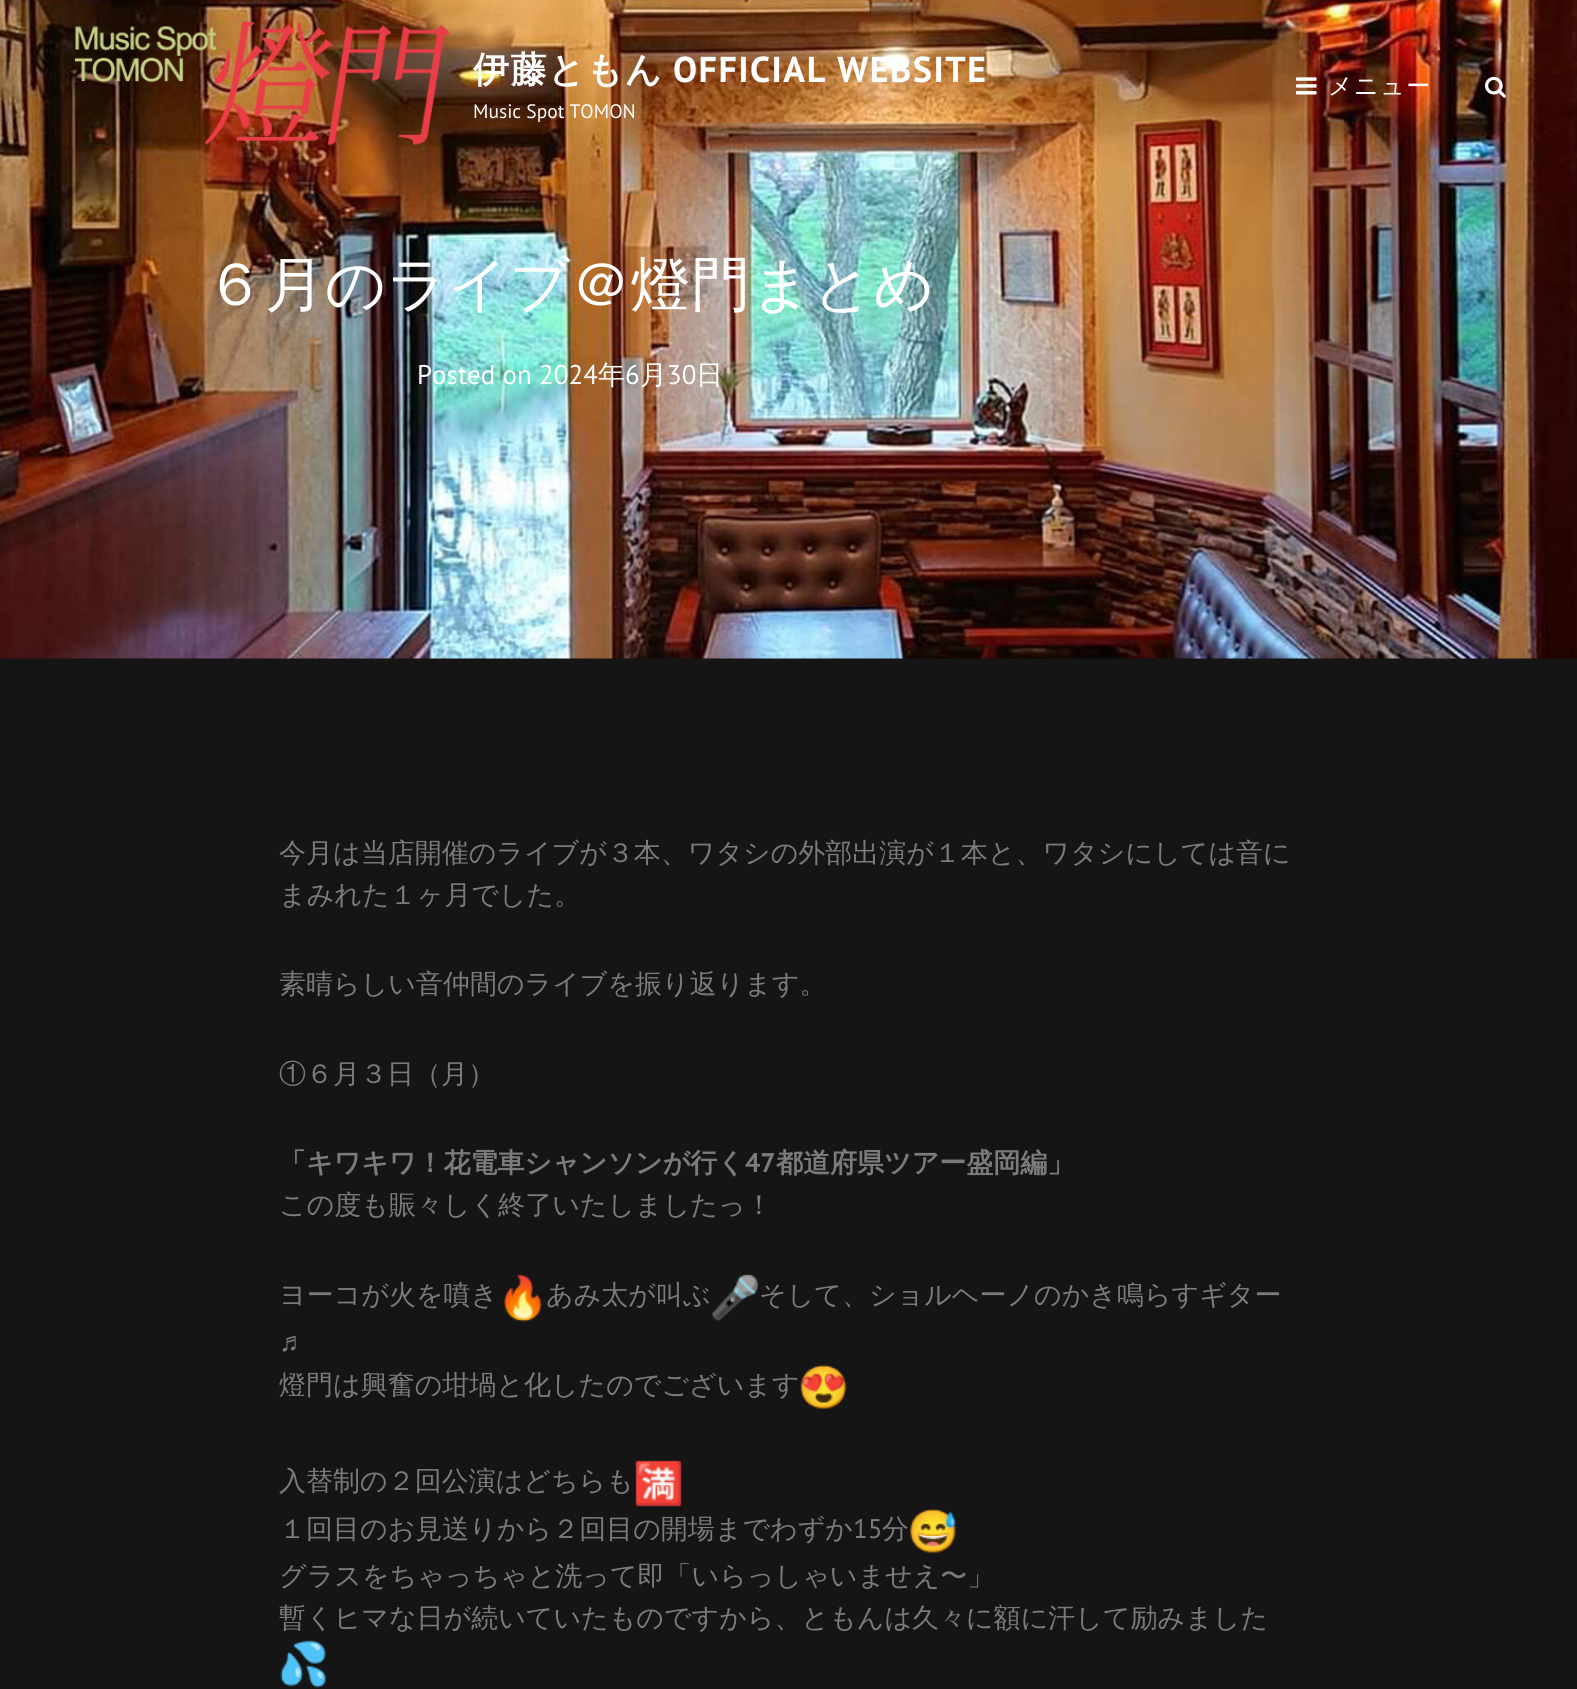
import math
import cairo

surface = cairo.ImageSurface(cairo.FORMAT_RGB24, 1577, 1689)
c = cairo.Context(surface)
options = cairo.FontOptions()
options.set_hint_metrics(cairo.HINT_METRICS_OFF)
options.set_hint_style(cairo.HINT_STYLE_NONE)
c.set_font_options(options)
c.set_miter_limit(4)
def C(code):
 c.set_source_rgb(*(v / 255 for v in bytes.fromhex(code[-6:])))
def F(family, size, italic, bold):
 c.select_font_face(family, cairo.FONT_SLANT_ITALIC if italic else cairo.FONT_SLANT_NORMAL, cairo.FONT_WEIGHT_BOLD if bold else cairo.FONT_WEIGHT_NORMAL)
 c.set_font_size(size)
def T(x, y, s):
 c.move_to(x, y)
 c.show_text(s)
def L(x, y, s, letter, word):
 c.move_to(x, y)
 for ch in s:
  c.show_text(ch)
  c.rel_move_to(letter + word * (ch == ' '), 0)
def R(x, y, w, h):
 c.rectangle(x, y, w, h)
 c.fill()
def I(path, x, y, w, h):
 c.save()
 c.set_source_surface(cairo.ImageSurface.create_from_png(path), x, y)
 c.rectangle(x, y, w, h)
 c.fill()
 c.restore()
C('151515')
c.paint()
C('121212')
R(0,658,1577,1)
I('4.png',0,0,1577,659)
I('1.png',75,21,375,125)
F('WenQuanYi Zen Hei',36,0,1)
C('ffffff')
L(473,82,'伊藤ともん',1.5,0)
F('PT Sans',36,0,1)
L(673,82,'OFFICIAL WEBSITE',1.5,0)
F('PT Sans',19.5,0,0)
T(473,118,'Music Spot TOMON')
I('2.png',1296,77,21,18)
F('WenQuanYi Zen Hei Medium',24,0,0)
L(1328,94,'メニュー',1.5,0)
I('3.png',1485,76,21,22)
F('WenQuanYi Zen Hei Medium',60,0,0)
T(205,305,'６月のライブ＠燈門まとめ')
F('PT Sans',27,0,0)
T(417,384,'Posted on 2024')
F('WenQuanYi Zen Hei Medium',27,0,0)
T(598,384,'年')
F('PT Sans',27,0,0)
T(625,384,'6')
F('WenQuanYi Zen Hei Medium',27,0,0)
T(640,384,'月')
F('PT Sans',27,0,0)
T(667,384,'30')
F('WenQuanYi Zen Hei Medium',27,0,0)
T(696,384,'日')
C('7b7b7b')
T(279,862,'今月は当店開催のライブが３本、ワタシの外部出演が１本と、ワタシにしては音に')
T(279,904,'まみれた１ヶ月でした。')
T(279,993,'素晴らしい音仲間のライブを振り返ります。')
T(279,1083,'①６月３日（月）')
F('WenQuanYi Zen Hei',27,0,1)
T(279,1172,'「キワキワ！花電車シャンソンが行く')
F('PT Sans',27,0,1)
T(745,1172,'47')
F('WenQuanYi Zen Hei',27,0,1)
T(776,1172,'都道府県ツアー盛岡編」')
F('WenQuanYi Zen Hei Medium',27,0,0)
T(279,1214,'この度も賑々しく終了いたしましたっ！')
T(279,1304,'ヨーコが火を噴き')
I('5.png',503,1274,39,48)
T(546,1304,'あみ太が叫ぶ')
I('6.png',712,1274,47,47)
T(759,1304,'そして、ショルヘーノのかき鳴らすギター')
F('Liberation Sans',27,0,0)
T(279,1351,'♬')
F('WenQuanYi Zen Hei Medium',27,0,0)
T(279,1394,'燈門は興奮の坩堝と化したのでございます')
I('7.png',800,1364,47,45)
T(279,1490,'入替制の２回公演はどちらも')
I('8.png',634,1460,48,47)
T(279,1538,'１回目のお見送りから２回目の開場までわずか')
F('PT Sans',27,0,0)
T(853,1538,'15')
F('WenQuanYi Zen Hei Medium',27,0,0)
T(882,1538,'分')
I('9.png',910,1508,46,45)
T(279,1585,'グラスをちゃっちゃと洗って即「いらっしゃいませえ〜」')
T(279,1627,'暫くヒマな日が続いていたものですから、ともんは久々に額に汗して励みました')
I('10.png',280,1640,46,48)
surface.write_to_png('o.png')
